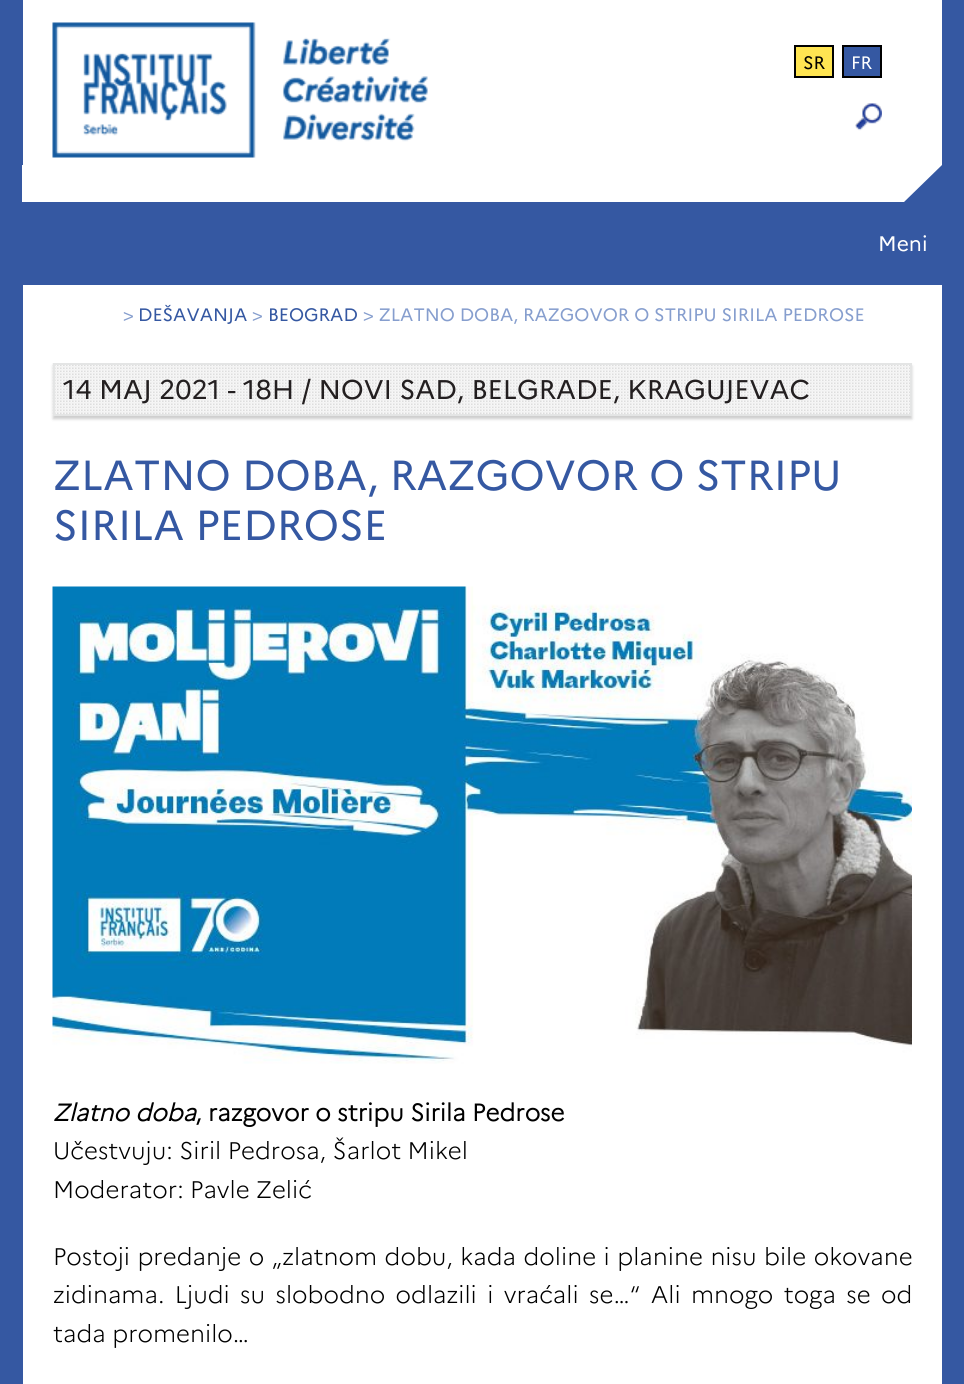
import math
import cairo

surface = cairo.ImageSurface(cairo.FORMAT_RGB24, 964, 1384)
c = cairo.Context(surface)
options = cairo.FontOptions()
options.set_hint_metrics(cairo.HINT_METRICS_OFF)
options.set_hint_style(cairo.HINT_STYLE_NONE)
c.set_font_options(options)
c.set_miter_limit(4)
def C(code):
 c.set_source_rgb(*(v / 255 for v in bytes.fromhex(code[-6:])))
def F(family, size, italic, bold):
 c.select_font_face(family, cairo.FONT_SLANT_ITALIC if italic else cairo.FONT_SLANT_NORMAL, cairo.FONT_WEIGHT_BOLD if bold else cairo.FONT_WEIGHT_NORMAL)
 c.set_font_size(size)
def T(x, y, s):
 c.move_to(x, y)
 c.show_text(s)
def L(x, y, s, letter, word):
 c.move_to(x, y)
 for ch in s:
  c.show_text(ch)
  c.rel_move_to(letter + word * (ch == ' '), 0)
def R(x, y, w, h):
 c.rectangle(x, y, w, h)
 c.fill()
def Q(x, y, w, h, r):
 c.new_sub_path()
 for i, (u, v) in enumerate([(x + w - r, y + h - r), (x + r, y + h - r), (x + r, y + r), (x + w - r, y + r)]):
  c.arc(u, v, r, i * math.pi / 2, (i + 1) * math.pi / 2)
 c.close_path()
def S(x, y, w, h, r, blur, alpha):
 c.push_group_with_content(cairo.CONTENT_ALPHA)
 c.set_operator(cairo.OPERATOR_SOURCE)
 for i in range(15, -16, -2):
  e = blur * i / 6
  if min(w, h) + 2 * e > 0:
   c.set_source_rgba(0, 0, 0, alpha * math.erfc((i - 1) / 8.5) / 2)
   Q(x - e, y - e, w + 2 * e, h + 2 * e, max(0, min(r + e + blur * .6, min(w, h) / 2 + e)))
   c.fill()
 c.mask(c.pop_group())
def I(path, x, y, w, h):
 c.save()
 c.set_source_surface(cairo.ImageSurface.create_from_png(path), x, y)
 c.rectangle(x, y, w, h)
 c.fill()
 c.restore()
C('3558a2')
c.paint()
C('ffffff')
R(23,0,919,165)
I('1.png',52,22,376,136)
C('ffe552')
c.rectangle(795,46,38,31)
c.fill_preserve()
C('000000')
c.stroke()
F('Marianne',18,0,0)
T(803,69,'SR')
C('3558a2')
c.rectangle(843,46,38,31)
c.fill_preserve()
C('000000')
c.stroke()
C('ffffff')
T(851,69,'FR')
I('2.png',855,103,27,28)
c.new_path()
c.move_to(22,165)
c.line_to(942,165)
c.line_to(904,202)
c.line_to(22,202)
c.close_path()
c.fill()
F('Marianne',21,0,0)
T(878,251,'Meni')
R(23,285,919,1099)
F('Marianne',18,0,0)
C('869ece')
T(123,321,'>')
C('3558a2')
T(138,321,'DEŠAVANJA')
C('869ece')
T(252,321,'>')
C('3558a2')
T(268,321,'BEOGRAD')
C('869ece')
T(363,321,'> ZLATNO DOBA, RAZGOVOR O STRIPU SIRILA PEDROSE')
C('000000')
S(53,366,859,53,0,1.5,.2)
I('3.png',52,363,858,53)
c.rectangle(54,364,857,51)
C('e4e5e5')
c.stroke()
F('Marianne',27,0,0)
C('231f20')
T(63,399,'14 MAJ 2021 - 18H / NOVI SAD, BELGRADE, KRAGUJEVAC')
F('Marianne',42,0,0)
C('3558a2')
T(53,490,'ZLATNO DOBA, RAZGOVOR O STRIPU')
T(53,540,'SIRILA PEDROSE')
I('4.png',52,586,860,478)
F('Marianne',24,1,1)
C('000000')
T(53,1121,'Zlatno doba')
F('Marianne',24,0,1)
T(195,1121,', razgovor o stripu Sirila Pedrose')
F('Marianne Light',24,0,0)
T(53,1159,'Učestvuju: Siril Pedrosa, Šarlot Mikel')
T(53,1198,'Moderator: Pavle Zelić')
L(53,1265,'Postoji predanje o „zlatnom dobu, kada doline i planine nisu bile okovane',0,1)
L(53,1303,'zidinama. Ljudi su slobodno odlazili i vraćali se…“ Ali mnogo toga se od',0,3.9)
T(53,1342,'tada promenilo…')
surface.write_to_png('o.png')
